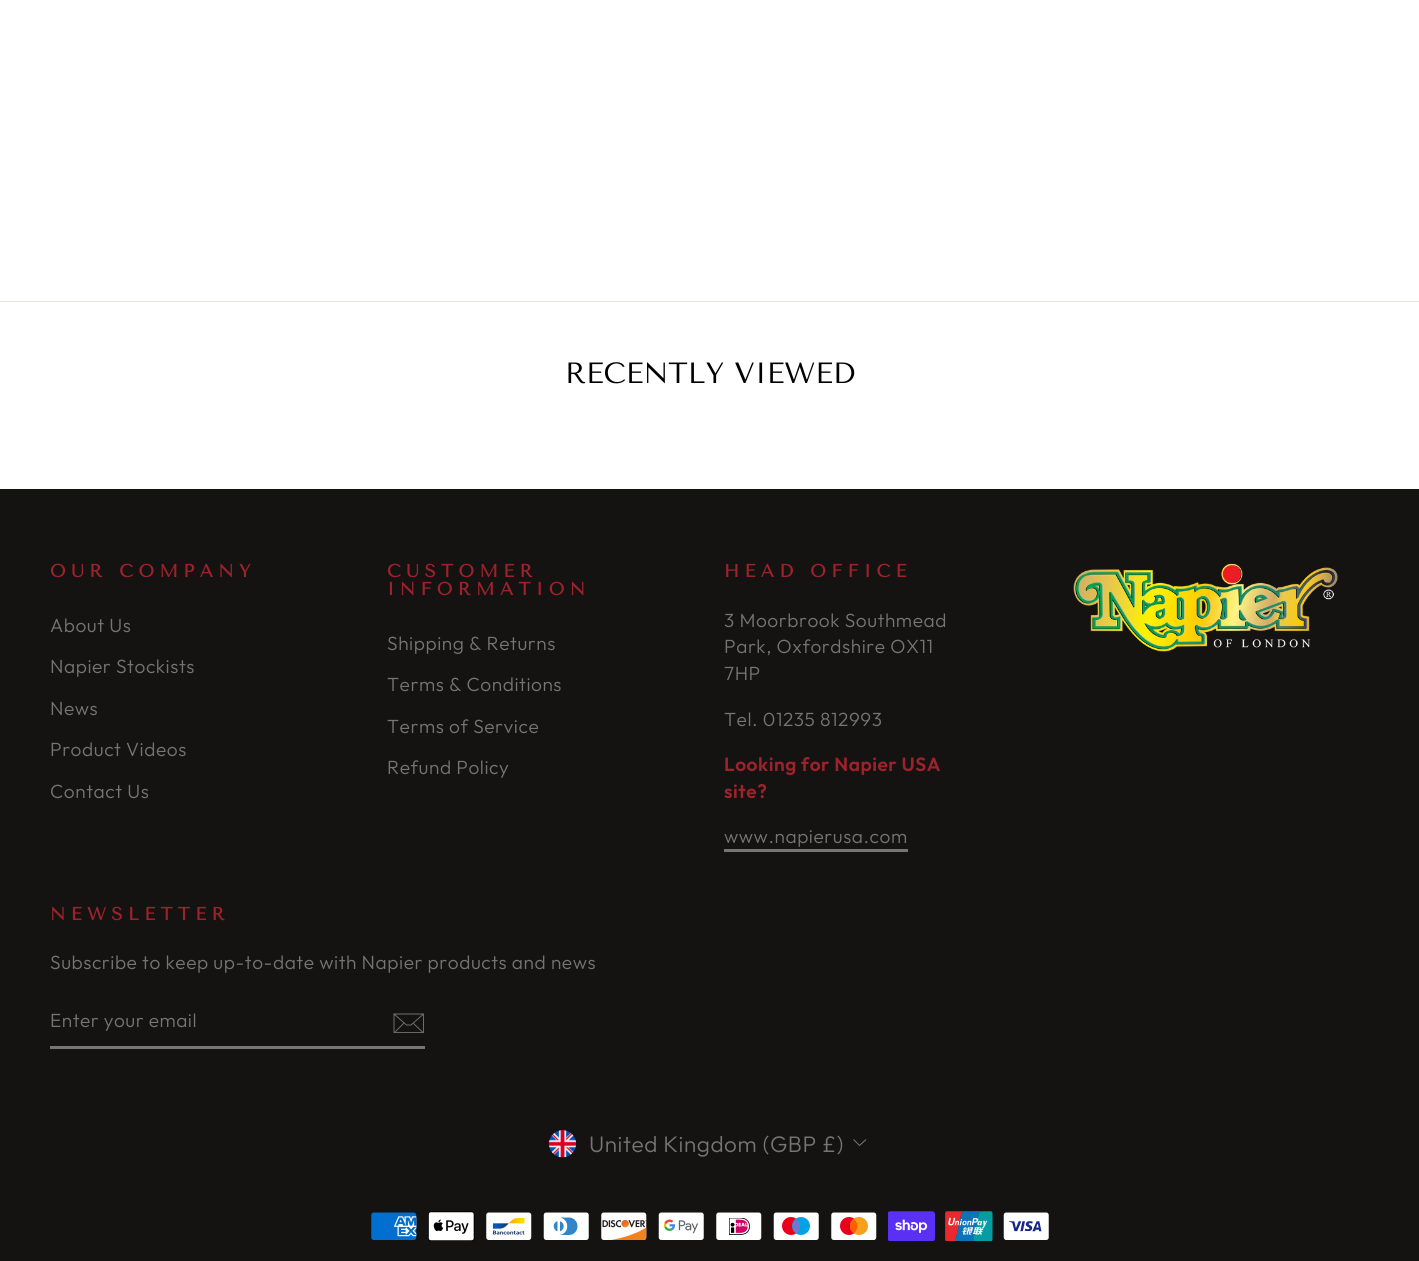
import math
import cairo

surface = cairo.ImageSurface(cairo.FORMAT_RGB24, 1419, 1261)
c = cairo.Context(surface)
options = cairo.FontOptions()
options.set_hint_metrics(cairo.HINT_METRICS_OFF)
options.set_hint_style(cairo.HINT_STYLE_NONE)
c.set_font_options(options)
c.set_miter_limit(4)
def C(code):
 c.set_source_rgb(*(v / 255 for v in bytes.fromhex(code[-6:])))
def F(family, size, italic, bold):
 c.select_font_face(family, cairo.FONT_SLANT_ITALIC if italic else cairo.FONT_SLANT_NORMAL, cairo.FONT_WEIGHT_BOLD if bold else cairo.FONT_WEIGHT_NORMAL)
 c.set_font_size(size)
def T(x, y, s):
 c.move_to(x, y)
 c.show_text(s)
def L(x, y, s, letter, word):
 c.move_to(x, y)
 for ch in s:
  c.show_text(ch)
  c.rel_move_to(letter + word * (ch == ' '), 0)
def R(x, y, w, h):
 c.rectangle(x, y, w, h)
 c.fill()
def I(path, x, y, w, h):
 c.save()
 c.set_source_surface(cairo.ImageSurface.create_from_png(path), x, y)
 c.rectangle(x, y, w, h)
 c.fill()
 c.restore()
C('ffffff')
c.paint()
C('e8e8e1')
R(0,301,1419,1)
F('Tenor Sans',29.25,0,0)
C('000000')
T(565,383,'RECENTLY VIEWED')
C('151212')
R(0,489,1419,772)
F('Tenor Sans',18,0,1)
C('9d222b')
L(50,577,'OUR COMPANY',5.4,0)
F('Outfit Light',19.1,0,0)
C('757575')
L(50,632,'About Us',.55,0)
L(50,673,'Napier Stockists',.55,0)
L(50,715,'News',.55,0)
L(50,756,'Product Videos',.55,0)
L(50,798,'Contact Us',.55,0)
F('Tenor Sans',18,0,1)
C('9d222b')
L(387,577,'CUSTOMER',5.4,0)
L(387,595,'INFORMATION',5.4,0)
F('Outfit Light',19.1,0,0)
C('757575')
L(387,650,'Shipping & Returns',.55,0)
L(387,691,'Terms & Conditions',.55,0)
L(387,733,'Terms of Service',.55,0)
L(387,774,'Refund Policy',.55,0)
F('Tenor Sans',18,0,1)
C('9d222b')
L(724,577,'HEAD OFFICE',5.4,0)
F('Outfit Light',19.1,0,0)
C('757575')
L(724,627,'3 Moorbrook Southmead',.55,0)
L(724,653,'Park, Oxfordshire OX11',.55,0)
L(724,680,'7HP',.55,0)
L(724,726,'Tel. 01235 812993',.55,0)
F('Outfit SemiBold',19.1,0,0)
C('9d222b')
L(724,771,'Looking for Napier USA',.55,0)
L(724,798,'site?',.55,0)
F('Outfit Light',19.1,0,0)
C('757575')
L(724,843,'www.napierusa.com',.55,0)
R(724,849,184,3)
I('1.png',1073,563,265,89)
F('Tenor Sans',18,0,1)
C('9d222b')
L(50,920,'NEWSLETTER',5.4,0)
F('Outfit Light',19.1,0,0)
C('757575')
L(50,969,'Subscribe to keep up-to-date with Napier products and news',.55,0)
R(50,1046,375,3)
L(50,1027,'Enter your email',.5,0)
c.new_path()
c.move_to(423.5,1032.5)
c.line_to(394,1032.5)
c.line_to(394,1014)
c.line_to(423.5,1014)
c.close_path()
c.move_to(394,1014)
c.line_to(406.5,1025)
c.line_to(411,1025)
c.line_to(423.5,1014)
c.move_to(404,1023)
c.line_to(394.5,1032.5)
c.move_to(423,1032.5)
c.line_to(413,1023)
c.set_line_width(.9)
c.stroke()
I('2.png',548,1130,29,28)
F('Outfit Light',22.5,0,0)
L(589,1152,'United Kingdom (GBP £)',.55,0)
c.new_path()
c.move_to(853.5,1139.5)
c.line_to(859.5,1145.5)
c.line_to(866,1139.5)
c.set_line_width(1)
c.stroke()
I('3.png',371,1212,46,28)
I('4.png',428,1211,47,30)
I('5.png',486,1212,46,28)
I('6.png',543,1212,46,28)
I('7.png',601,1212,46,28)
I('8.png',658,1212,46,28)
I('9.png',716,1212,46,28)
I('10.png',773,1212,46,28)
I('11.png',831,1212,46,28)
I('12.png',888,1211,47,30)
I('13.png',945,1211,48,30)
I('14.png',1003,1212,46,28)
surface.write_to_png('o.png')
